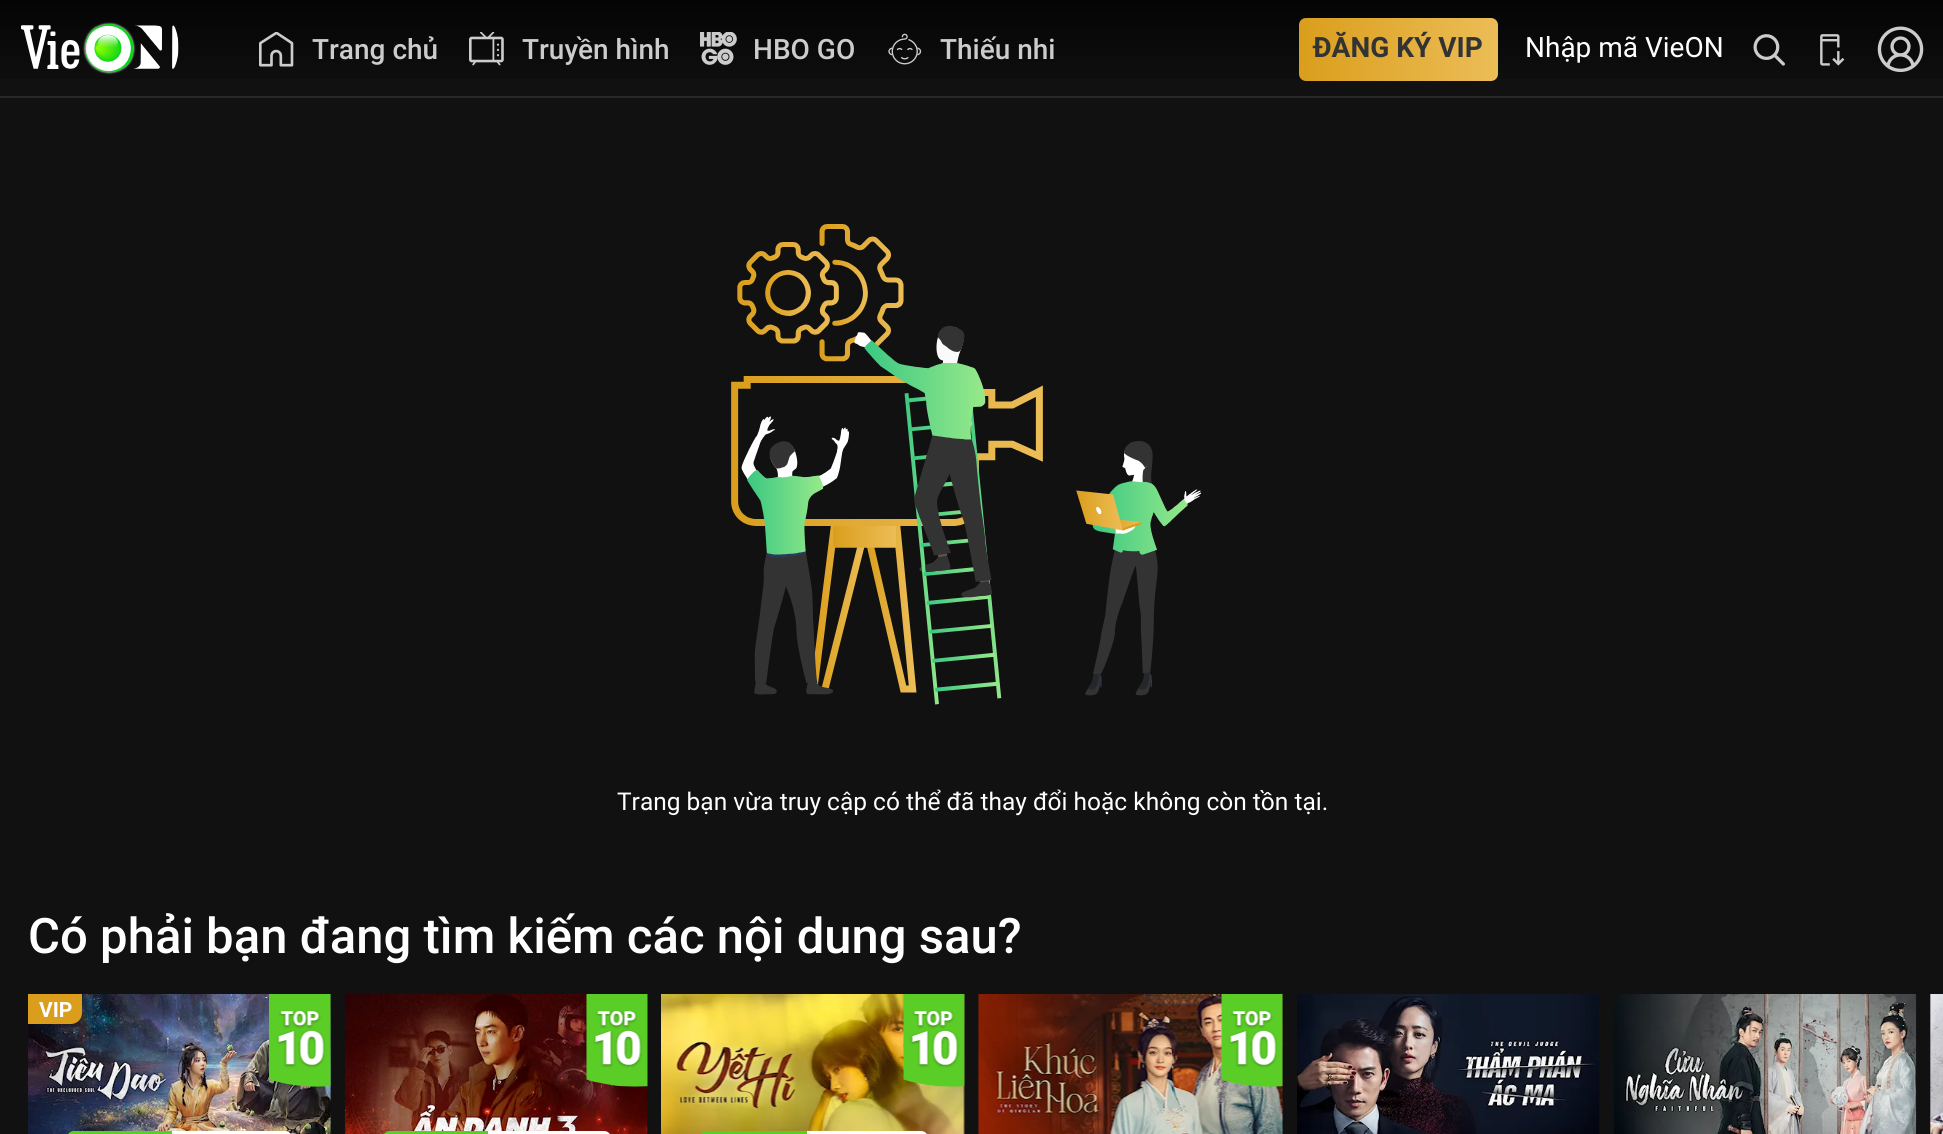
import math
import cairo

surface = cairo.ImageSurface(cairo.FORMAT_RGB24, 1943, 1134)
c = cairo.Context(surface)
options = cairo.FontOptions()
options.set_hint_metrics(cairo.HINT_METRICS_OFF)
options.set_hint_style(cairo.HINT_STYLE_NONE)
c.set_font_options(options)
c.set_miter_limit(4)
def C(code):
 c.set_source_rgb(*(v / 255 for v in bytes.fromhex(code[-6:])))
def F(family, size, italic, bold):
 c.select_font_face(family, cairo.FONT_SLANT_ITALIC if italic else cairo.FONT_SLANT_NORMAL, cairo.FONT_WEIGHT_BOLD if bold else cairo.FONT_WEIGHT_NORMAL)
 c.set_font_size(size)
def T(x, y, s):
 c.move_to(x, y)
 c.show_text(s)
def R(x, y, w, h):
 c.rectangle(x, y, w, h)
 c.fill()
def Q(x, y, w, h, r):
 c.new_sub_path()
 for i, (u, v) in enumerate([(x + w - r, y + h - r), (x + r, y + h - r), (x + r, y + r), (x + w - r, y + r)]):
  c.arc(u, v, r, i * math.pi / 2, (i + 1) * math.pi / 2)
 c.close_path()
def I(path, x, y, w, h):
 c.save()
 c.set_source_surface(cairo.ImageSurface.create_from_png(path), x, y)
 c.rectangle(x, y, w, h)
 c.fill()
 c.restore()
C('111111')
c.paint()
gradient = cairo.LinearGradient(972,98,972,0)
gradient.add_color_stop_rgba(0,0.067,0.067,0.067,1)
gradient.add_color_stop_rgba(1,0.016,0.016,0.016,1)
c.set_source(gradient)
R(0,0,1943,79)
C('292929')
R(0,96,1943,2)
I('1.png',21,22,158,53)
I('2.png',259,32,35,35)
F('Roboto Medium',28,0,0)
C('cccccc')
T(312,59,'Trang chủ')
I('3.png',469,32,35,34)
T(522,59,'Truyền hình')
I('4.png',700,32,37,33)
T(753,59,'HBO GO')
I('5.png',888,33,34,32)
T(940,59,'Thiếu nhi')
gradient = cairo.LinearGradient(1299,49,1498,49)
gradient.add_color_stop_rgba(0,0.855,0.62,0.11,1)
gradient.add_color_stop_rgba(1,0.925,0.741,0.341,1)
c.set_source(gradient)
Q(1299,18,199,63,7)
c.fill()
F('Roboto',28,0,1)
C('333333')
T(1313,57,'ĐĂNG KÝ VIP')
F('Roboto',28,0,0)
C('ffffff')
T(1525,57,'Nhập mã VieON')
I('6.png',1753,34,32,32)
I('7.png',1820,34,25,32)
I('8.png',1877,26,47,46)
I('9.png',731,224,471,481)
F('Roboto',24.5,0,0)
T(617,810,'Trang bạn vừa truy cập có thể đã thay đổi hoặc không còn tồn tại.')
F('Roboto Medium',49,0,0)
T(28,953,'Có phải bạn đang tìm kiếm các nội dung sau?')
I('10.png',28,994,303,140)
C('da9e1c')
c.new_path()
c.move_to(28,994)
c.line_to(82,994)
c.line_to(82,1013)
c.curve_to(82,1019,77,1024,71,1024)
c.line_to(28,1024)
c.close_path()
c.fill()
F('Roboto',21,0,1)
C('ffffff')
T(39,1017,'VIP')
I('11.png',269,994,62,93)
C('5bcd27')
c.new_path()
c.move_to(74,1131)
c.line_to(172,1131)
c.line_to(172,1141)
c.line_to(67,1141)
c.line_to(67,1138)
c.curve_to(67,1134,70,1131,74,1131)
c.close_path()
c.fill()
C('ffffff')
c.new_path()
c.move_to(172,1131)
c.line_to(285,1131)
c.curve_to(289,1131,292,1134,292,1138)
c.line_to(292,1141)
c.line_to(172,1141)
c.close_path()
c.fill()
I('12.png',344,994,304,140)
I('13.png',586,994,62,93)
C('5bcd27')
c.new_path()
c.move_to(390,1131)
c.line_to(488,1131)
c.line_to(488,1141)
c.line_to(383,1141)
c.line_to(383,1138)
c.curve_to(383,1134,386,1131,390,1131)
c.close_path()
c.fill()
C('ffffff')
c.new_path()
c.move_to(488,1131)
c.line_to(604,1131)
c.curve_to(608,1131,611,1134,611,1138)
c.line_to(611,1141)
c.line_to(488,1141)
c.close_path()
c.fill()
I('14.png',661,994,304,140)
I('15.png',903,994,62,93)
C('5bcd27')
c.new_path()
c.move_to(707,1131)
c.line_to(807,1131)
c.line_to(807,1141)
c.line_to(700,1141)
c.line_to(700,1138)
c.curve_to(700,1134,703,1131,707,1131)
c.close_path()
c.fill()
C('ffffff')
c.new_path()
c.move_to(807,1131)
c.line_to(921,1131)
c.curve_to(925,1131,928,1134,928,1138)
c.line_to(928,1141)
c.line_to(807,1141)
c.close_path()
c.fill()
I('16.png',977,994,306,140)
I('17.png',1221,994,62,93)
I('18.png',1297,994,303,140)
I('19.png',1613,994,304,140)
I('20.png',1930,994,13,140)
surface.write_to_png('o.png')
